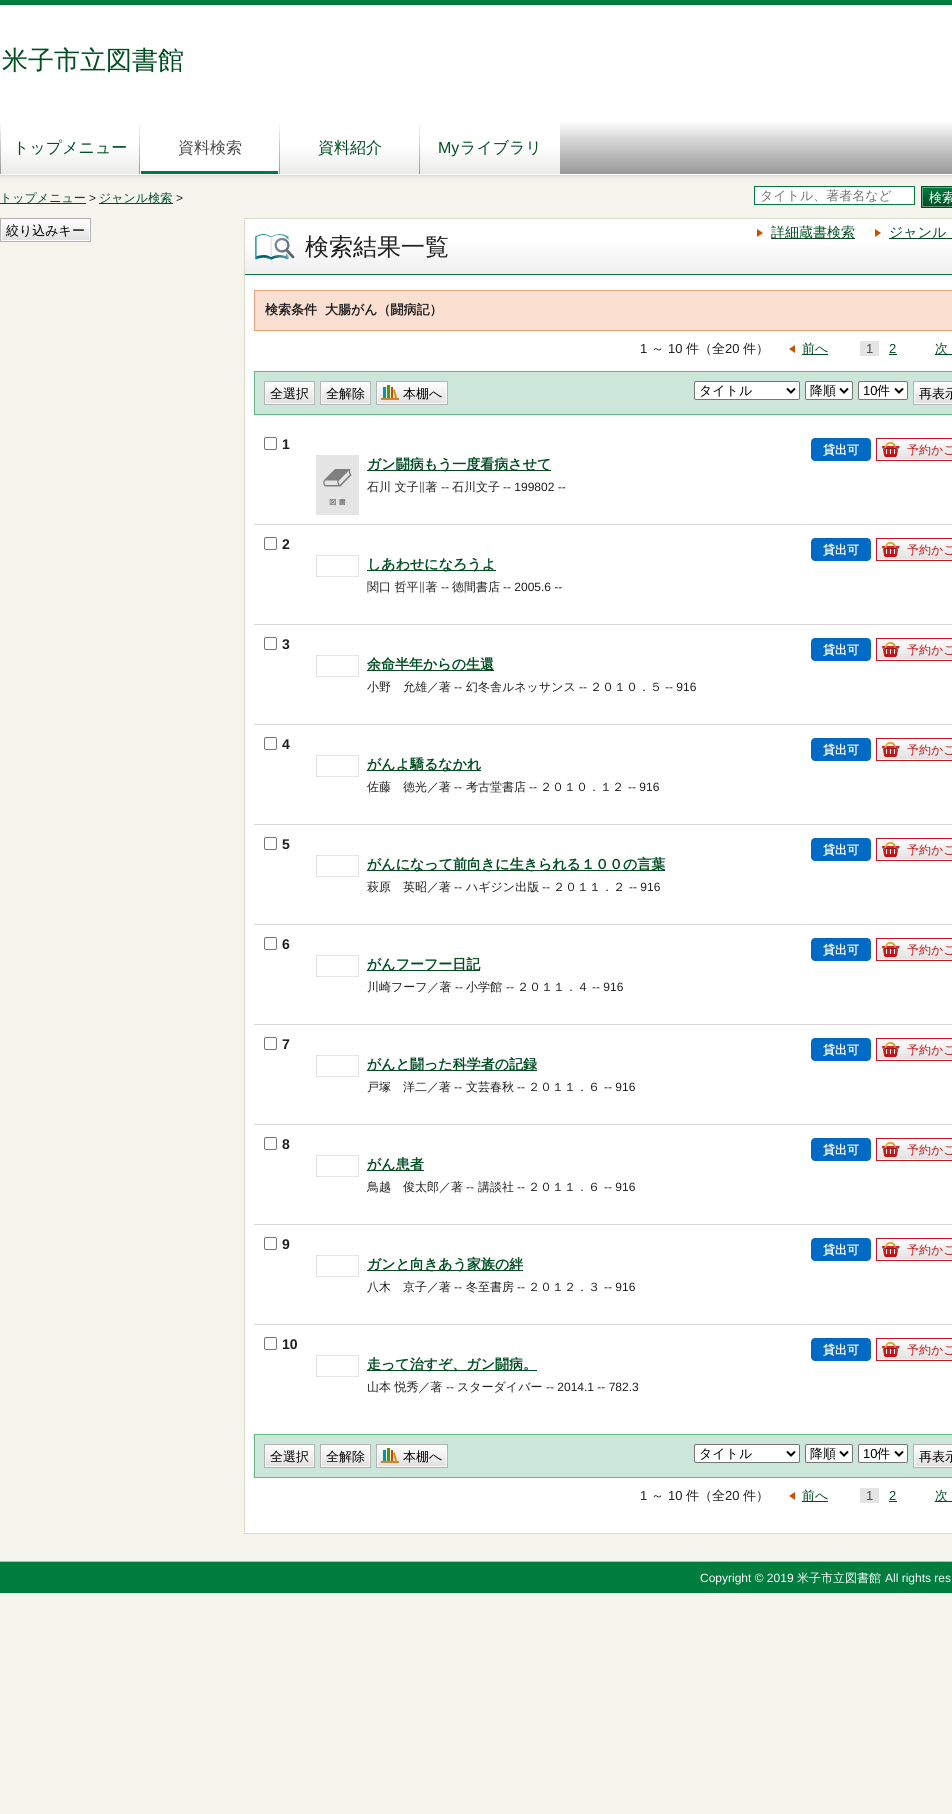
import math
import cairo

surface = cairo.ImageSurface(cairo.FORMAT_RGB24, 952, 1814)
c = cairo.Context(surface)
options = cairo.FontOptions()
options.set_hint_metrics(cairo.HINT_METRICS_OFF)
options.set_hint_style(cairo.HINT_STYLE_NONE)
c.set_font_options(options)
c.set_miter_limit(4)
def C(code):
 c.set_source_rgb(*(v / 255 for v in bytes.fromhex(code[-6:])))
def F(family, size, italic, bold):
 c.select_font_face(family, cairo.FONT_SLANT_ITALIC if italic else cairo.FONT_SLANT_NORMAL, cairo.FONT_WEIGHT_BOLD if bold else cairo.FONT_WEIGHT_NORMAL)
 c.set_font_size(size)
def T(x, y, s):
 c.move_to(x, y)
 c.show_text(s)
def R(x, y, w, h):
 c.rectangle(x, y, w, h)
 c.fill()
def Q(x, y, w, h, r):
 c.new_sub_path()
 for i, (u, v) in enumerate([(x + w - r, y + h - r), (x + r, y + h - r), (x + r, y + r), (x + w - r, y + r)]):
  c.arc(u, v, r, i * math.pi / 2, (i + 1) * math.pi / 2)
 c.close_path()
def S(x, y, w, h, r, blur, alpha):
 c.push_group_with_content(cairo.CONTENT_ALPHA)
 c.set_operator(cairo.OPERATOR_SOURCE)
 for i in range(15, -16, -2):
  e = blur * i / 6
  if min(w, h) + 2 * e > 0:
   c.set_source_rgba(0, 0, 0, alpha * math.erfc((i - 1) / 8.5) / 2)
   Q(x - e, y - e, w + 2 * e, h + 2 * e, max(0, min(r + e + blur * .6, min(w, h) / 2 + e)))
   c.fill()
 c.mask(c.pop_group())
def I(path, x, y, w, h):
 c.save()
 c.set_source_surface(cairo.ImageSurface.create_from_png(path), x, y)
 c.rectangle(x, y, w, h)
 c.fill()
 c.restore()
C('f5f4ed')
c.paint()
C('000000')
S(0,0,952,176,0,3.5,.13)
C('ffffff')
R(0,5,952,170)
C('007c3e')
R(0,0,952,5)
C('deddd8')
R(0,175,952,1)
F('WenQuanYi Zen Hei Medium',26,0,0)
C('004d22')
T(2,69,'米子市立図書館')
gradient = cairo.LinearGradient(492,174,492,118)
gradient.add_color_stop_rgba(0,0.6,0.6,0.6,1)
gradient.add_color_stop_rgba(.55,0.812,0.812,0.812,1)
gradient.add_color_stop_rgba(.95,1,1,1,1)
gradient.add_color_stop_rgba(1,1,1,1,1)
c.set_source(gradient)
R(0,122,952,52)
gradient = cairo.LinearGradient(70,174,70,118)
gradient.add_color_stop_rgba(0,0.922,0.918,0.914,1)
gradient.add_color_stop_rgba(.5,1,1,1,1)
gradient.add_color_stop_rgba(1,1,1,1,1)
c.set_source(gradient)
R(1,122,138,52)
F('WenQuanYi Zen Hei Medium',16,0,0)
C('004d22')
T(13,153,'トップメニュー')
C('ffffff')
R(140,122,139,49)
C('007c3e')
R(140,171,139,3)
C('4c4c4c')
T(178,153,'資料検索')
C('ffffff')
R(140,171,1,3)
R(278,171,1,3)
gradient = cairo.LinearGradient(350,174,350,118)
gradient.add_color_stop_rgba(0,0.922,0.918,0.914,1)
gradient.add_color_stop_rgba(.5,1,1,1,1)
gradient.add_color_stop_rgba(1,1,1,1,1)
c.set_source(gradient)
R(280,122,139,52)
C('004d22')
T(318,153,'資料紹介')
gradient = cairo.LinearGradient(490,174,490,118)
gradient.add_color_stop_rgba(0,0.922,0.918,0.914,1)
gradient.add_color_stop_rgba(.5,1,1,1,1)
gradient.add_color_stop_rgba(1,1,1,1,1)
c.set_source(gradient)
R(420,122,140,52)
F('Liberation Sans',16,0,0)
C('004d22')
T(438,153,'My')
F('WenQuanYi Zen Hei Medium',16,0,0)
T(460,153,'ライブラリ')
R(0,203,86,1)
F('WenQuanYi Zen Hei Medium',12,0,0)
T(0,202,'トップメニュー')
F('Liberation Sans',12,0,0)
C('1f1f1f')
T(89,202,'>')
C('004d22')
R(99,203,74,1)
F('WenQuanYi Zen Hei Medium',12,0,0)
T(99,202,'ジャンル検索')
F('Liberation Sans',12,0,0)
C('1f1f1f')
T(176,202,'>')
C('ffffff')
c.rectangle(754.5,186.5,160,18)
c.fill_preserve()
C('007c3e')
c.set_line_width(1)
c.stroke()
F('WenQuanYi Zen Hei Medium',13,0,0)
C('757575')
T(760,200,'タイトル、著者名など')
gradient = cairo.LinearGradient(942,207,942,187)
gradient.add_color_stop_rgba(0,0,0.302,0.133,1)
gradient.add_color_stop_rgba(1,0,0.486,0.243,1)
c.set_source(gradient)
R(922,187,30,20)
c.rectangle(922.5,187.5,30,19)
c.set_source_rgba(0.988,0.988,0.988,0.4)
c.stroke()
c.rectangle(921.5,186.5,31,21)
C('004d22')
c.stroke()
C('ffffff')
T(929,202,'検索')
gradient = cairo.LinearGradient(46,241,46,219)
gradient.add_color_stop_rgba(0,0.878,0.878,0.878,1)
gradient.add_color_stop_rgba(1,1,1,1,1)
c.set_source(gradient)
R(2,220,87,20)
c.rectangle(1.5,219.5,88,21)
C('fbfbfb')
c.stroke()
c.rectangle(.5,218.5,90,23)
C('b3b3b3')
c.stroke()
C('000000')
T(6,235,'絞り込みキー')
C('ffffff')
R(245,275,707,1258)
c.rectangle(244.5,218.5,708,1315)
C('dbdacb')
c.stroke()
gradient = cairo.LinearGradient(614,274,614,219)
gradient.add_color_stop_rgba(0,0.922,0.922,0.922,1)
gradient.add_color_stop_rgba(0,0.937,0.937,0.937,1)
gradient.add_color_stop_rgba(.62,1,1,1,1)
gradient.add_color_stop_rgba(1,1,1,1,1)
c.set_source(gradient)
R(245,219,707,55)
C('cc4e00')
c.new_path()
c.move_to(757,237)
c.line_to(757,229)
c.line_to(763,233)
c.close_path()
c.fill()
C('004d22')
R(771,238,84,1)
F('WenQuanYi Zen Hei Medium',14,0,0)
T(771,237,'詳細蔵書検索')
C('cc4e00')
c.new_path()
c.move_to(875,237)
c.line_to(875,229)
c.line_to(881,233)
c.close_path()
c.fill()
C('004d22')
R(889,238,63,1)
T(889,237,'ジャンル')
C('007c3e')
R(245,274,707,1)
I('1.png',255,234,40,26)
F('WenQuanYi Zen Hei Medium',24,0,0)
C('1f1f1f')
T(305,255,'検索結果一覧')
C('fbdfd1')
c.rectangle(254.5,290.5,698,40)
c.fill_preserve()
C('f3a074')
c.stroke()
F('WenQuanYi Zen Hei',13,0,1)
C('1f1f1f')
T(265,314,'検索条件')
T(325,314,'大腸がん（闘病記）')
F('Liberation Sans',13,0,0)
T(640,353,'1')
F('WenQuanYi Zen Hei Medium',13,0,0)
T(651,353,'～')
F('Liberation Sans',13,0,0)
T(668,353,'10')
F('WenQuanYi Zen Hei Medium',13,0,0)
T(686,353,'件（全')
F('Liberation Sans',13,0,0)
T(725,353,'20')
F('WenQuanYi Zen Hei Medium',13,0,0)
T(743,353,'件）')
C('cc4e00')
c.new_path()
c.move_to(795,345)
c.line_to(795,353)
c.line_to(789,349)
c.close_path()
c.fill()
C('004d22')
R(802,354,26,1)
T(802,353,'前へ')
C('e4e4e4')
R(860,341,19,15)
F('Liberation Sans',13,0,0)
C('4c4c4c')
T(866,353,'1')
C('004d22')
T(889,353,'2')
R(889,354,8,1)
R(935,354,17,1)
F('WenQuanYi Zen Hei Medium',13,0,0)
T(935,353,'次')
C('cce6d9')
c.rectangle(254.5,371.5,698,43)
c.fill_preserve()
C('5cbc87')
c.stroke()
gradient = cairo.LinearGradient(290,404,290,382)
gradient.add_color_stop_rgba(0,0.878,0.878,0.878,1)
gradient.add_color_stop_rgba(1,1,1,1,1)
c.set_source(gradient)
R(266,383,47,20)
c.rectangle(265.5,382.5,48,21)
C('fbfbfb')
c.stroke()
c.rectangle(264.5,381.5,50,23)
C('b3b3b3')
c.stroke()
C('000000')
T(270,398,'全選択')
gradient = cairo.LinearGradient(346,404,346,382)
gradient.add_color_stop_rgba(0,0.878,0.878,0.878,1)
gradient.add_color_stop_rgba(1,1,1,1,1)
c.set_source(gradient)
R(322,383,47,20)
c.rectangle(321.5,382.5,48,21)
C('fbfbfb')
c.stroke()
c.rectangle(320.5,381.5,50,23)
C('b3b3b3')
c.stroke()
C('000000')
T(326,398,'全解除')
gradient = cairo.LinearGradient(412,404,412,382)
gradient.add_color_stop_rgba(0,0.878,0.878,0.878,1)
gradient.add_color_stop_rgba(1,1,1,1,1)
c.set_source(gradient)
R(378,383,68,20)
c.rectangle(377.5,382.5,69,21)
C('fbfbfb')
c.stroke()
c.rectangle(376.5,381.5,71,23)
C('b3b3b3')
c.stroke()
I('2.png',381,385,18,15)
C('000000')
T(403,398,'本棚へ')
C('ffffff')
Q(694.5,381.5,105,18,1.5)
c.fill_preserve()
C('767676')
c.stroke()
c.new_path()
c.move_to(787,388.5)
c.line_to(791,392.5)
c.line_to(795,388.5)
C('000000')
c.set_line_width(2)
c.stroke()
T(699,395,'タイトル')
C('ffffff')
Q(805.5,381.5,47,18,1.5)
c.fill_preserve()
C('767676')
c.set_line_width(1)
c.stroke()
c.new_path()
c.move_to(840,388.5)
c.line_to(844,392.5)
c.line_to(848,388.5)
C('000000')
c.set_line_width(2)
c.stroke()
T(810,395,'降順')
C('ffffff')
Q(858.5,381.5,49,18,1.5)
c.fill_preserve()
C('767676')
c.set_line_width(1)
c.stroke()
c.new_path()
c.move_to(895,388.5)
c.line_to(899,392.5)
c.line_to(903,388.5)
C('000000')
c.set_line_width(2)
c.stroke()
F('Liberation Sans',13,0,0)
T(863,395,'10')
F('WenQuanYi Zen Hei Medium',13,0,0)
T(877,395,'件')
gradient = cairo.LinearGradient(939,404,939,382)
gradient.add_color_stop_rgba(0,0.878,0.878,0.878,1)
gradient.add_color_stop_rgba(1,1,1,1,1)
c.set_source(gradient)
R(915,383,37,20)
c.rectangle(914.5,382.5,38,21)
C('fbfbfb')
c.set_line_width(1)
c.stroke()
c.rectangle(913.5,381.5,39,23)
C('b3b3b3')
c.stroke()
C('000000')
T(919,398,'再表示')
Q(264.5,437.5,12,12,1.5)
C('767676')
c.stroke()
F('Liberation Sans',14,0,1)
C('1f1f1f')
T(282,449,'1')
C('006bc5')
Q(812,439,58,21,3)
c.fill_preserve()
c.set_line_width(2)
c.stroke()
F('WenQuanYi Zen Hei',12,0,1)
C('ffffff')
T(823,454,'貸出可')
gradient = cairo.LinearGradient(925,460,925,439)
gradient.add_color_stop_rgba(0,0.878,0.878,0.878,1)
gradient.add_color_stop_rgba(1,1,1,1,1)
c.set_source(gradient)
R(878,441,74,18)
c.rectangle(877.5,439.5,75,20)
C('fbfbfb')
c.set_line_width(1)
c.stroke()
c.rectangle(876.5,438.5,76,22)
C('c5181c')
c.stroke()
I('3.png',881,441,19,16)
F('WenQuanYi Zen Hei Medium',12,0,0)
T(907,454,'予約かご')
c.rectangle(316.5,455.5,42,59)
C('e5e5e5')
c.stroke()
I('4.png',317,456,41,58)
C('004d22')
R(367,470,184,1)
F('WenQuanYi Zen Hei',14,0,1)
T(367,469,'ガン闘病もう一度看病させて')
F('WenQuanYi Zen Hei Medium',12,0,0)
C('1f1f1f')
T(367,491,'石川 文子∥著')
F('Liberation Sans',12,0,0)
T(441,491,'--')
F('WenQuanYi Zen Hei Medium',12,0,0)
T(452,491,'石川文子')
F('Liberation Sans',12,0,0)
T(503,491,'-- 199802 --')
C('d6d6d6')
R(254,524,698,1)
Q(264.5,537.5,12,12,1.5)
C('767676')
c.stroke()
F('Liberation Sans',14,0,1)
C('1f1f1f')
T(282,549,'2')
C('006bc5')
Q(812,539,58,21,3)
c.fill_preserve()
c.set_line_width(2)
c.stroke()
F('WenQuanYi Zen Hei',12,0,1)
C('ffffff')
T(823,554,'貸出可')
gradient = cairo.LinearGradient(925,560,925,539)
gradient.add_color_stop_rgba(0,0.878,0.878,0.878,1)
gradient.add_color_stop_rgba(1,1,1,1,1)
c.set_source(gradient)
R(878,541,74,18)
c.rectangle(877.5,539.5,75,20)
C('fbfbfb')
c.set_line_width(1)
c.stroke()
c.rectangle(876.5,538.5,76,22)
C('c5181c')
c.stroke()
I('3.png',881,541,19,16)
F('WenQuanYi Zen Hei Medium',12,0,0)
T(907,554,'予約かご')
c.rectangle(316.5,555.5,42,21)
C('e5e5e5')
c.stroke()
C('004d22')
R(367,570,129,1)
F('WenQuanYi Zen Hei',14,0,1)
T(367,569,'しあわせになろうよ')
F('WenQuanYi Zen Hei Medium',12,0,0)
C('1f1f1f')
T(367,591,'関口 哲平∥著')
F('Liberation Sans',12,0,0)
T(441,591,'--')
F('WenQuanYi Zen Hei Medium',12,0,0)
T(452,591,'徳間書店')
F('Liberation Sans',12,0,0)
T(503,591,'-- 2005.6 --')
C('d6d6d6')
R(254,624,698,1)
Q(264.5,637.5,12,12,1.5)
C('767676')
c.stroke()
F('Liberation Sans',14,0,1)
C('1f1f1f')
T(282,649,'3')
C('006bc5')
Q(812,639,58,21,3)
c.fill_preserve()
c.set_line_width(2)
c.stroke()
F('WenQuanYi Zen Hei',12,0,1)
C('ffffff')
T(823,654,'貸出可')
gradient = cairo.LinearGradient(925,660,925,639)
gradient.add_color_stop_rgba(0,0.878,0.878,0.878,1)
gradient.add_color_stop_rgba(1,1,1,1,1)
c.set_source(gradient)
R(878,641,74,18)
c.rectangle(877.5,639.5,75,20)
C('fbfbfb')
c.set_line_width(1)
c.stroke()
c.rectangle(876.5,638.5,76,22)
C('c5181c')
c.stroke()
I('3.png',881,641,19,16)
F('WenQuanYi Zen Hei Medium',12,0,0)
T(907,654,'予約かご')
c.rectangle(316.5,655.5,42,21)
C('e5e5e5')
c.stroke()
C('004d22')
R(367,670,127,1)
F('WenQuanYi Zen Hei',14,0,1)
T(367,669,'余命半年からの生還')
F('WenQuanYi Zen Hei Medium',12,0,0)
C('1f1f1f')
T(367,691,'小野　允雄／著')
F('Liberation Sans',12,0,0)
T(454,691,'--')
F('WenQuanYi Zen Hei Medium',12,0,0)
T(466,691,'幻冬舎ルネッサンス')
F('Liberation Sans',12,0,0)
T(579,691,'--')
F('WenQuanYi Zen Hei Medium',12,0,0)
T(590,691,'２０１０．５')
F('Liberation Sans',12,0,0)
T(665,691,'-- 916')
C('d6d6d6')
R(254,724,698,1)
Q(264.5,737.5,12,12,1.5)
C('767676')
c.stroke()
F('Liberation Sans',14,0,1)
C('1f1f1f')
T(282,749,'4')
C('006bc5')
Q(812,739,58,21,3)
c.fill_preserve()
c.set_line_width(2)
c.stroke()
F('WenQuanYi Zen Hei',12,0,1)
C('ffffff')
T(823,754,'貸出可')
gradient = cairo.LinearGradient(925,760,925,739)
gradient.add_color_stop_rgba(0,0.878,0.878,0.878,1)
gradient.add_color_stop_rgba(1,1,1,1,1)
c.set_source(gradient)
R(878,741,74,18)
c.rectangle(877.5,739.5,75,20)
C('fbfbfb')
c.set_line_width(1)
c.stroke()
c.rectangle(876.5,738.5,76,22)
C('c5181c')
c.stroke()
I('3.png',881,741,19,16)
F('WenQuanYi Zen Hei Medium',12,0,0)
T(907,754,'予約かご')
c.rectangle(316.5,755.5,42,21)
C('e5e5e5')
c.stroke()
C('004d22')
R(367,770,114,1)
F('WenQuanYi Zen Hei',14,0,1)
T(367,769,'がんよ驕るなかれ')
F('WenQuanYi Zen Hei Medium',12,0,0)
C('1f1f1f')
T(367,791,'佐藤　徳光／著')
F('Liberation Sans',12,0,0)
T(454,791,'--')
F('WenQuanYi Zen Hei Medium',12,0,0)
T(466,791,'考古堂書店')
F('Liberation Sans',12,0,0)
T(529,791,'--')
F('WenQuanYi Zen Hei Medium',12,0,0)
T(540,791,'２０１０．１２')
F('Liberation Sans',12,0,0)
T(628,791,'-- 916')
C('d6d6d6')
R(254,824,698,1)
Q(264.5,837.5,12,12,1.5)
C('767676')
c.stroke()
F('Liberation Sans',14,0,1)
C('1f1f1f')
T(282,849,'5')
C('006bc5')
Q(812,839,58,21,3)
c.fill_preserve()
c.set_line_width(2)
c.stroke()
F('WenQuanYi Zen Hei',12,0,1)
C('ffffff')
T(823,854,'貸出可')
gradient = cairo.LinearGradient(925,860,925,839)
gradient.add_color_stop_rgba(0,0.878,0.878,0.878,1)
gradient.add_color_stop_rgba(1,1,1,1,1)
c.set_source(gradient)
R(878,841,74,18)
c.rectangle(877.5,839.5,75,20)
C('fbfbfb')
c.set_line_width(1)
c.stroke()
c.rectangle(876.5,838.5,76,22)
C('c5181c')
c.stroke()
I('3.png',881,841,19,16)
F('WenQuanYi Zen Hei Medium',12,0,0)
T(907,854,'予約かご')
c.rectangle(316.5,855.5,42,21)
C('e5e5e5')
c.stroke()
C('004d22')
R(367,870,298,1)
F('WenQuanYi Zen Hei',14,0,1)
T(367,869,'がんになって前向きに生きられる１００の言葉')
F('WenQuanYi Zen Hei Medium',12,0,0)
C('1f1f1f')
T(367,891,'萩原　英昭／著')
F('Liberation Sans',12,0,0)
T(454,891,'--')
F('WenQuanYi Zen Hei Medium',12,0,0)
T(466,891,'ハギジン出版')
F('Liberation Sans',12,0,0)
T(542,891,'--')
F('WenQuanYi Zen Hei Medium',12,0,0)
T(553,891,'２０１１．２')
F('Liberation Sans',12,0,0)
T(629,891,'-- 916')
C('d6d6d6')
R(254,924,698,1)
Q(264.5,937.5,12,12,1.5)
C('767676')
c.stroke()
F('Liberation Sans',14,0,1)
C('1f1f1f')
T(282,949,'6')
C('006bc5')
Q(812,939,58,21,3)
c.fill_preserve()
c.set_line_width(2)
c.stroke()
F('WenQuanYi Zen Hei',12,0,1)
C('ffffff')
T(823,954,'貸出可')
gradient = cairo.LinearGradient(925,960,925,939)
gradient.add_color_stop_rgba(0,0.878,0.878,0.878,1)
gradient.add_color_stop_rgba(1,1,1,1,1)
c.set_source(gradient)
R(878,941,74,18)
c.rectangle(877.5,939.5,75,20)
C('fbfbfb')
c.set_line_width(1)
c.stroke()
c.rectangle(876.5,938.5,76,22)
C('c5181c')
c.stroke()
I('3.png',881,941,19,16)
F('WenQuanYi Zen Hei Medium',12,0,0)
T(907,954,'予約かご')
c.rectangle(316.5,955.5,42,21)
C('e5e5e5')
c.stroke()
C('004d22')
R(367,970,113,1)
F('WenQuanYi Zen Hei',14,0,1)
T(367,969,'がんフーフー日記')
F('WenQuanYi Zen Hei Medium',12,0,0)
C('1f1f1f')
T(367,991,'川崎フーフ／著')
F('Liberation Sans',12,0,0)
T(455,991,'--')
F('WenQuanYi Zen Hei Medium',12,0,0)
T(466,991,'小学館')
F('Liberation Sans',12,0,0)
T(506,991,'--')
F('WenQuanYi Zen Hei Medium',12,0,0)
T(517,991,'２０１１．４')
F('Liberation Sans',12,0,0)
T(592,991,'-- 916')
C('d6d6d6')
R(254,1024,698,1)
Q(264.5,1037.5,12,12,1.5)
C('767676')
c.stroke()
F('Liberation Sans',14,0,1)
C('1f1f1f')
T(282,1049,'7')
C('006bc5')
Q(812,1039,58,21,3)
c.fill_preserve()
c.set_line_width(2)
c.stroke()
F('WenQuanYi Zen Hei',12,0,1)
C('ffffff')
T(823,1054,'貸出可')
gradient = cairo.LinearGradient(925,1060,925,1039)
gradient.add_color_stop_rgba(0,0.878,0.878,0.878,1)
gradient.add_color_stop_rgba(1,1,1,1,1)
c.set_source(gradient)
R(878,1041,74,18)
c.rectangle(877.5,1039.5,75,20)
C('fbfbfb')
c.set_line_width(1)
c.stroke()
c.rectangle(876.5,1038.5,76,22)
C('c5181c')
c.stroke()
I('3.png',881,1041,19,16)
F('WenQuanYi Zen Hei Medium',12,0,0)
T(907,1054,'予約かご')
c.rectangle(316.5,1055.5,42,21)
C('e5e5e5')
c.stroke()
C('004d22')
R(367,1070,170,1)
F('WenQuanYi Zen Hei',14,0,1)
T(367,1069,'がんと闘った科学者の記録')
F('WenQuanYi Zen Hei Medium',12,0,0)
C('1f1f1f')
T(367,1091,'戸塚　洋二／著')
F('Liberation Sans',12,0,0)
T(454,1091,'--')
F('WenQuanYi Zen Hei Medium',12,0,0)
T(466,1091,'文芸春秋')
F('Liberation Sans',12,0,0)
T(517,1091,'--')
F('WenQuanYi Zen Hei Medium',12,0,0)
T(528,1091,'２０１１．６')
F('Liberation Sans',12,0,0)
T(604,1091,'-- 916')
C('d6d6d6')
R(254,1124,698,1)
Q(264.5,1137.5,12,12,1.5)
C('767676')
c.stroke()
F('Liberation Sans',14,0,1)
C('1f1f1f')
T(282,1149,'8')
C('006bc5')
Q(812,1139,58,21,3)
c.fill_preserve()
c.set_line_width(2)
c.stroke()
F('WenQuanYi Zen Hei',12,0,1)
C('ffffff')
T(823,1154,'貸出可')
gradient = cairo.LinearGradient(925,1160,925,1139)
gradient.add_color_stop_rgba(0,0.878,0.878,0.878,1)
gradient.add_color_stop_rgba(1,1,1,1,1)
c.set_source(gradient)
R(878,1141,74,18)
c.rectangle(877.5,1139.5,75,20)
C('fbfbfb')
c.set_line_width(1)
c.stroke()
c.rectangle(876.5,1138.5,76,22)
C('c5181c')
c.stroke()
I('3.png',881,1141,19,16)
F('WenQuanYi Zen Hei Medium',12,0,0)
T(907,1154,'予約かご')
c.rectangle(316.5,1155.5,42,21)
C('e5e5e5')
c.stroke()
C('004d22')
R(367,1170,57,1)
F('WenQuanYi Zen Hei',14,0,1)
T(367,1169,'がん患者')
F('WenQuanYi Zen Hei Medium',12,0,0)
C('1f1f1f')
T(367,1191,'鳥越　俊太郎／著')
F('Liberation Sans',12,0,0)
T(466,1191,'--')
F('WenQuanYi Zen Hei Medium',12,0,0)
T(478,1191,'講談社')
F('Liberation Sans',12,0,0)
T(517,1191,'--')
F('WenQuanYi Zen Hei Medium',12,0,0)
T(528,1191,'２０１１．６')
F('Liberation Sans',12,0,0)
T(604,1191,'-- 916')
C('d6d6d6')
R(254,1224,698,1)
Q(264.5,1237.5,12,12,1.5)
C('767676')
c.stroke()
F('Liberation Sans',14,0,1)
C('1f1f1f')
T(282,1249,'9')
C('006bc5')
Q(812,1239,58,21,3)
c.fill_preserve()
c.set_line_width(2)
c.stroke()
F('WenQuanYi Zen Hei',12,0,1)
C('ffffff')
T(823,1254,'貸出可')
gradient = cairo.LinearGradient(925,1260,925,1239)
gradient.add_color_stop_rgba(0,0.878,0.878,0.878,1)
gradient.add_color_stop_rgba(1,1,1,1,1)
c.set_source(gradient)
R(878,1241,74,18)
c.rectangle(877.5,1239.5,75,20)
C('fbfbfb')
c.set_line_width(1)
c.stroke()
c.rectangle(876.5,1238.5,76,22)
C('c5181c')
c.stroke()
I('3.png',881,1241,19,16)
F('WenQuanYi Zen Hei Medium',12,0,0)
T(907,1254,'予約かご')
c.rectangle(316.5,1255.5,42,21)
C('e5e5e5')
c.stroke()
C('004d22')
R(367,1270,156,1)
F('WenQuanYi Zen Hei',14,0,1)
T(367,1269,'ガンと向きあう家族の絆')
F('WenQuanYi Zen Hei Medium',12,0,0)
C('1f1f1f')
T(367,1291,'八木　京子／著')
F('Liberation Sans',12,0,0)
T(454,1291,'--')
F('WenQuanYi Zen Hei Medium',12,0,0)
T(466,1291,'冬至書房')
F('Liberation Sans',12,0,0)
T(517,1291,'--')
F('WenQuanYi Zen Hei Medium',12,0,0)
T(528,1291,'２０１２．３')
F('Liberation Sans',12,0,0)
T(604,1291,'-- 916')
C('d6d6d6')
R(254,1324,698,1)
Q(264.5,1337.5,12,12,1.5)
C('767676')
c.stroke()
F('Liberation Sans',14,0,1)
C('1f1f1f')
T(282,1349,'10')
C('006bc5')
Q(812,1339,58,21,3)
c.fill_preserve()
c.set_line_width(2)
c.stroke()
F('WenQuanYi Zen Hei',12,0,1)
C('ffffff')
T(823,1354,'貸出可')
gradient = cairo.LinearGradient(925,1360,925,1339)
gradient.add_color_stop_rgba(0,0.878,0.878,0.878,1)
gradient.add_color_stop_rgba(1,1,1,1,1)
c.set_source(gradient)
R(878,1341,74,18)
c.rectangle(877.5,1339.5,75,20)
C('fbfbfb')
c.set_line_width(1)
c.stroke()
c.rectangle(876.5,1338.5,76,22)
C('c5181c')
c.stroke()
I('3.png',881,1341,19,16)
F('WenQuanYi Zen Hei Medium',12,0,0)
T(907,1354,'予約かご')
c.rectangle(316.5,1355.5,42,21)
C('e5e5e5')
c.stroke()
C('004d22')
R(367,1370,170,1)
F('WenQuanYi Zen Hei',14,0,1)
T(367,1369,'走って治すぞ、ガン闘病。')
F('WenQuanYi Zen Hei Medium',12,0,0)
C('1f1f1f')
T(367,1391,'山本 悦秀／著')
F('Liberation Sans',12,0,0)
T(446,1391,'--')
F('WenQuanYi Zen Hei Medium',12,0,0)
T(457,1391,'スターダイバー')
F('Liberation Sans',12,0,0)
T(546,1391,'-- 2014.1 -- 782.3')
C('cce6d9')
c.rectangle(254.5,1434.5,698,43)
c.fill_preserve()
C('5cbc87')
c.stroke()
gradient = cairo.LinearGradient(290,1467,290,1445)
gradient.add_color_stop_rgba(0,0.878,0.878,0.878,1)
gradient.add_color_stop_rgba(1,1,1,1,1)
c.set_source(gradient)
R(266,1446,47,20)
c.rectangle(265.5,1445.5,48,21)
C('fbfbfb')
c.stroke()
c.rectangle(264.5,1444.5,50,23)
C('b3b3b3')
c.stroke()
F('WenQuanYi Zen Hei Medium',13,0,0)
C('000000')
T(270,1461,'全選択')
gradient = cairo.LinearGradient(346,1467,346,1445)
gradient.add_color_stop_rgba(0,0.878,0.878,0.878,1)
gradient.add_color_stop_rgba(1,1,1,1,1)
c.set_source(gradient)
R(322,1446,47,20)
c.rectangle(321.5,1445.5,48,21)
C('fbfbfb')
c.stroke()
c.rectangle(320.5,1444.5,50,23)
C('b3b3b3')
c.stroke()
C('000000')
T(326,1461,'全解除')
gradient = cairo.LinearGradient(412,1467,412,1445)
gradient.add_color_stop_rgba(0,0.878,0.878,0.878,1)
gradient.add_color_stop_rgba(1,1,1,1,1)
c.set_source(gradient)
R(378,1446,68,20)
c.rectangle(377.5,1445.5,69,21)
C('fbfbfb')
c.stroke()
c.rectangle(376.5,1444.5,71,23)
C('b3b3b3')
c.stroke()
I('2.png',381,1448,18,15)
C('000000')
T(403,1461,'本棚へ')
C('ffffff')
Q(694.5,1444.5,105,18,1.5)
c.fill_preserve()
C('767676')
c.stroke()
c.new_path()
c.move_to(787,1451.5)
c.line_to(791,1455.5)
c.line_to(795,1451.5)
C('000000')
c.set_line_width(2)
c.stroke()
T(699,1458,'タイトル')
C('ffffff')
Q(805.5,1444.5,47,18,1.5)
c.fill_preserve()
C('767676')
c.set_line_width(1)
c.stroke()
c.new_path()
c.move_to(840,1451.5)
c.line_to(844,1455.5)
c.line_to(848,1451.5)
C('000000')
c.set_line_width(2)
c.stroke()
T(810,1458,'降順')
C('ffffff')
Q(858.5,1444.5,49,18,1.5)
c.fill_preserve()
C('767676')
c.set_line_width(1)
c.stroke()
c.new_path()
c.move_to(895,1451.5)
c.line_to(899,1455.5)
c.line_to(903,1451.5)
C('000000')
c.set_line_width(2)
c.stroke()
F('Liberation Sans',13,0,0)
T(863,1458,'10')
F('WenQuanYi Zen Hei Medium',13,0,0)
T(877,1458,'件')
gradient = cairo.LinearGradient(939,1467,939,1445)
gradient.add_color_stop_rgba(0,0.878,0.878,0.878,1)
gradient.add_color_stop_rgba(1,1,1,1,1)
c.set_source(gradient)
R(915,1446,37,20)
c.rectangle(914.5,1445.5,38,21)
C('fbfbfb')
c.set_line_width(1)
c.stroke()
c.rectangle(913.5,1444.5,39,23)
C('b3b3b3')
c.stroke()
C('000000')
T(919,1461,'再表示')
F('Liberation Sans',13,0,0)
C('1f1f1f')
T(640,1500,'1')
F('WenQuanYi Zen Hei Medium',13,0,0)
T(651,1500,'～')
F('Liberation Sans',13,0,0)
T(668,1500,'10')
F('WenQuanYi Zen Hei Medium',13,0,0)
T(686,1500,'件（全')
F('Liberation Sans',13,0,0)
T(725,1500,'20')
F('WenQuanYi Zen Hei Medium',13,0,0)
T(743,1500,'件）')
C('cc4e00')
c.new_path()
c.move_to(795,1492)
c.line_to(795,1500)
c.line_to(789,1496)
c.close_path()
c.fill()
C('004d22')
R(802,1501,26,1)
T(802,1500,'前へ')
C('e4e4e4')
R(860,1488,19,15)
F('Liberation Sans',13,0,0)
C('4c4c4c')
T(866,1500,'1')
C('004d22')
T(889,1500,'2')
R(889,1501,8,1)
R(935,1501,17,1)
F('WenQuanYi Zen Hei Medium',13,0,0)
T(935,1500,'次')
C('007c3e')
R(0,1562,952,31)
C('b3b3b3')
R(0,1561,952,1)
F('Liberation Sans',12,0,0)
C('ffffff')
T(700,1582,'Copyright © 2019')
F('WenQuanYi Zen Hei Medium',12,0,0)
T(797,1582,'米子市立図書館')
F('Liberation Sans',12,0,0)
T(885,1582,'All rights res')
surface.write_to_png('o.png')
